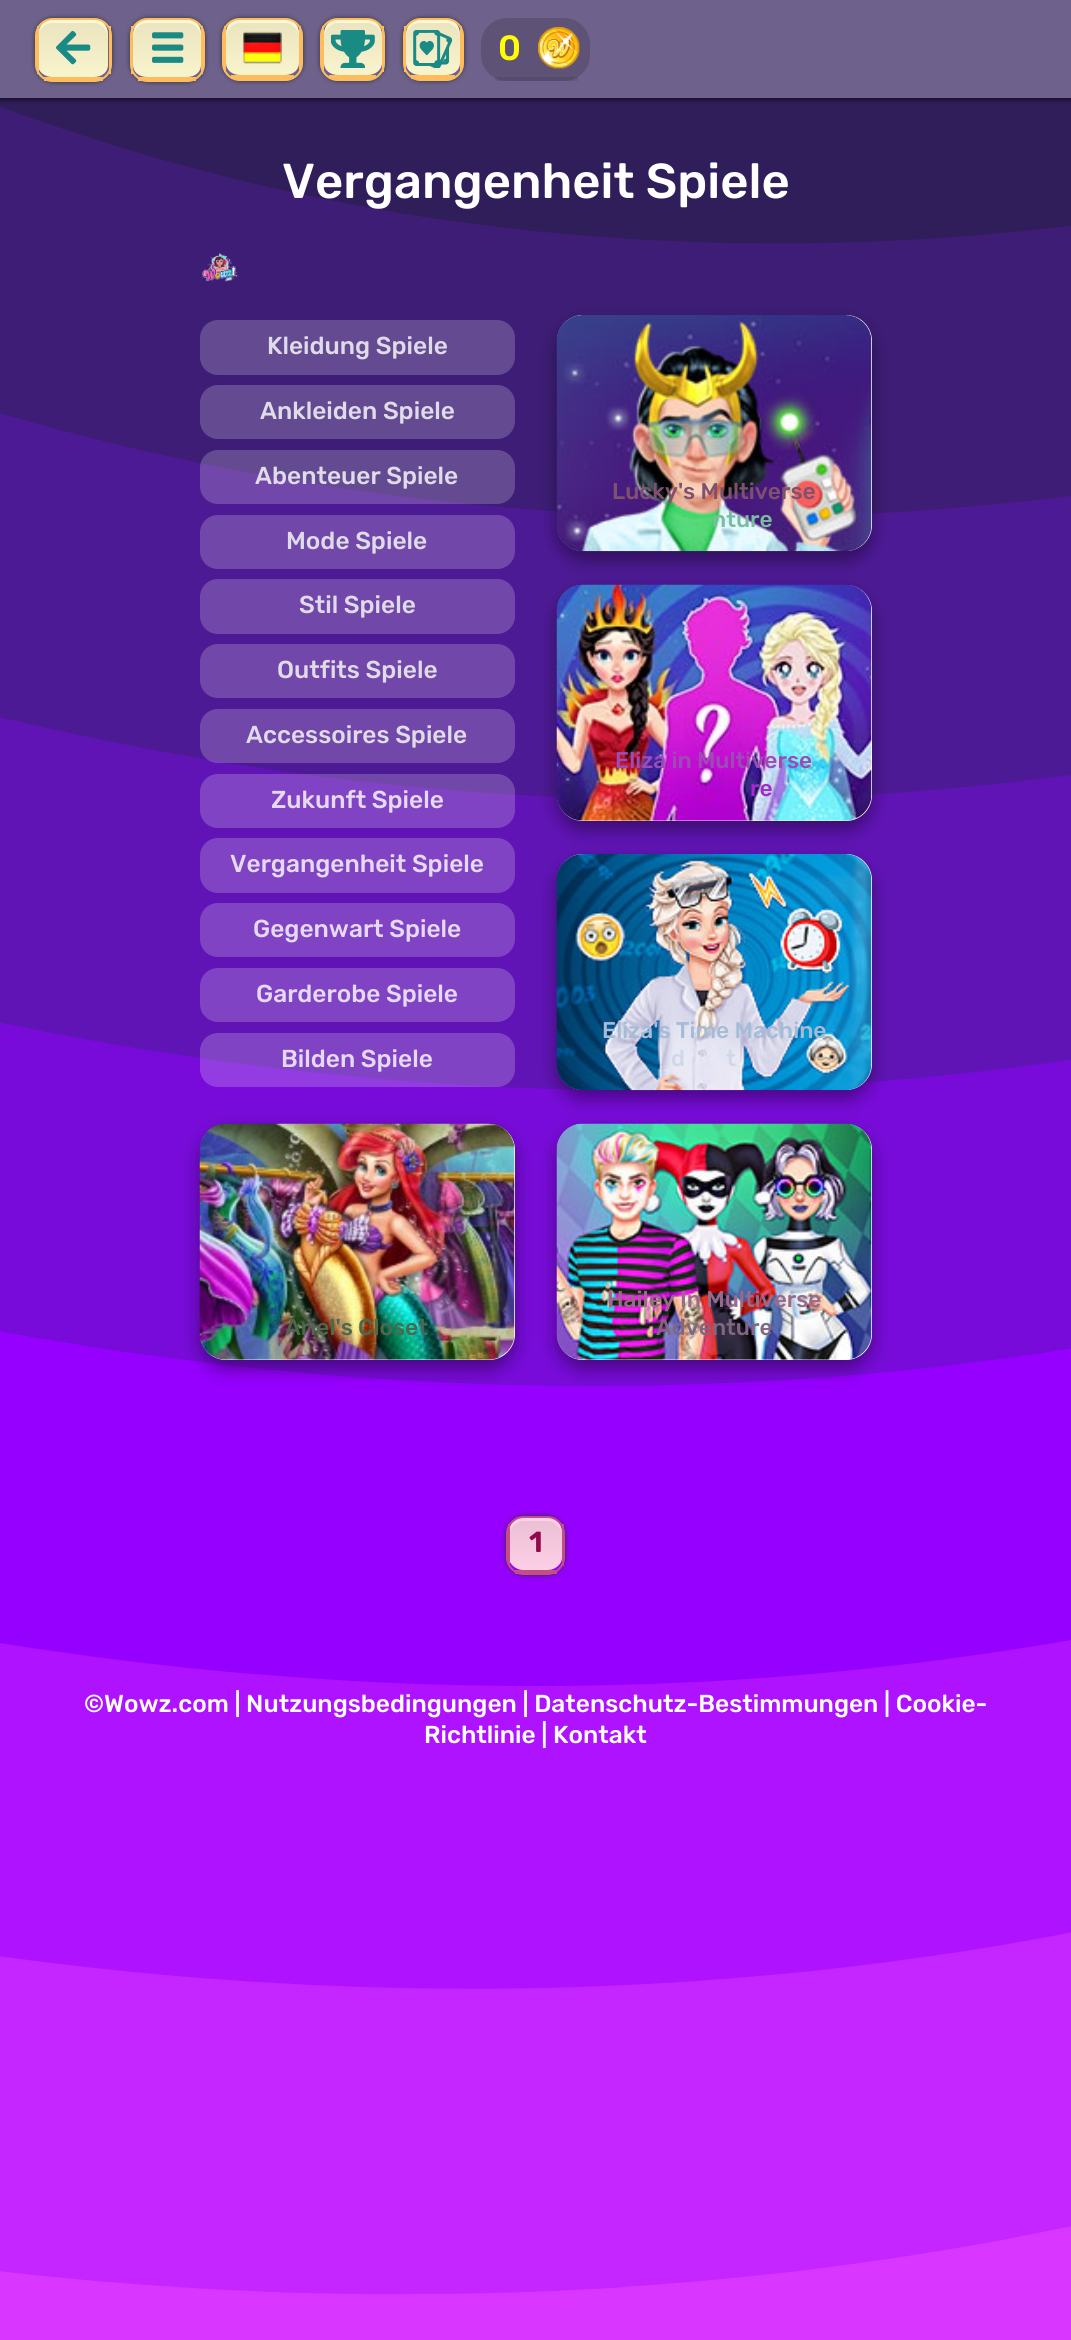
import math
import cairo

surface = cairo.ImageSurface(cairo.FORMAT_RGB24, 1071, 2340)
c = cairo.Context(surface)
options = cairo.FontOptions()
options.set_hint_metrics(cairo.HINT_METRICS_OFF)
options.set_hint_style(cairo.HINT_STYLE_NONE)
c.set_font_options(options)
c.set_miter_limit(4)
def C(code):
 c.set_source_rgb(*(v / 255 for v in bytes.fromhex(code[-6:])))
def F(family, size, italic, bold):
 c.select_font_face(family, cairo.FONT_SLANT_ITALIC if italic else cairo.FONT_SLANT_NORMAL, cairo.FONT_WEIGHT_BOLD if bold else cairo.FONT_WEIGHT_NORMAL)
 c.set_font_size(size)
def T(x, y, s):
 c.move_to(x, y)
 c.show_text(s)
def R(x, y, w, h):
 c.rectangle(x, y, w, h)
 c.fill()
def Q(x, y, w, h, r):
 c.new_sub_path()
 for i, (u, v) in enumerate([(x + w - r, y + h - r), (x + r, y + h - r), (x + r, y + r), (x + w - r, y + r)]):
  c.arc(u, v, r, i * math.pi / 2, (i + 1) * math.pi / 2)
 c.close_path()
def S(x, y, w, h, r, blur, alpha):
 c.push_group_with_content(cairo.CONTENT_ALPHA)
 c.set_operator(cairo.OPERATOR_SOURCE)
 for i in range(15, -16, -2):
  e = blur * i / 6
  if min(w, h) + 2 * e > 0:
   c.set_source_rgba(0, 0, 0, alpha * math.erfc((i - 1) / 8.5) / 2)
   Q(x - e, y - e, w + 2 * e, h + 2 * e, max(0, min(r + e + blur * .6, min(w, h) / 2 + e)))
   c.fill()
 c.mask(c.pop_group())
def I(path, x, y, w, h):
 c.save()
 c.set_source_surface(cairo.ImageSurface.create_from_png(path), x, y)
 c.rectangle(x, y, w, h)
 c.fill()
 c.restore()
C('ffffff')
c.paint()
I('1.png',0,98,1071,2242)
C('000000')
S(0,0,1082,98,0,3.5,1)
C('6e628c')
R(0,0,1071,98)
c.save()
c.set_fill_rule(cairo.FILL_RULE_EVEN_ODD)
c.new_path()
c.move_to(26,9)
c.line_to(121,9)
c.line_to(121,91)
c.line_to(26,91)
c.close_path()
c.move_to(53,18)
c.line_to(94,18)
c.curve_to(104,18,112,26,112,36)
c.line_to(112,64)
c.curve_to(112,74,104,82,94,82)
c.line_to(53,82)
c.curve_to(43,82,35,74,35,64)
c.line_to(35,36)
c.curve_to(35,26,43,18,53,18)
c.close_path()
c.clip()
C('333333')
S(35,18,77,64,18,2.5,1)
c.restore()
gradient = cairo.LinearGradient(74,19,74,77)
gradient.add_color_stop_rgba(0,0.914,0.894,0.749,1)
gradient.add_color_stop_rgba(1,0.976,0.957,0.8,1)
c.set_source(gradient)
c.new_path()
c.move_to(52,19)
c.line_to(94,19)
c.curve_to(102,19,108,26,108,35)
c.line_to(108,65)
c.curve_to(108,72,102,77,94,77)
c.line_to(52,77)
c.curve_to(45,77,38,72,38,65)
c.line_to(38,35)
c.curve_to(38,26,45,19,52,19)
c.close_path()
c.fill()
C('fff7d2')
c.new_path()
c.move_to(52,23)
c.line_to(94,23)
c.curve_to(102,23,108,30,108,38)
c.line_to(108,68)
c.line_to(108,65)
c.line_to(108,35)
c.curve_to(108,26,102,19,94,19)
c.line_to(52,19)
c.curve_to(45,19,39,26,39,34)
c.curve_to(40,28,46,23,52,23)
c.close_path()
c.fill()
Q(36,19,75,62,17)
C('febc5c')
c.stroke()
R(109,26,2,48)
R(44,77,59,4)
R(37,26,2,48)
I('2.png',56,30,35,35)
c.save()
c.set_fill_rule(cairo.FILL_RULE_EVEN_ODD)
c.new_path()
c.move_to(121,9)
c.line_to(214,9)
c.line_to(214,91)
c.line_to(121,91)
c.close_path()
c.move_to(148,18)
c.line_to(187,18)
c.curve_to(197,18,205,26,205,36)
c.line_to(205,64)
c.curve_to(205,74,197,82,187,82)
c.line_to(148,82)
c.curve_to(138,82,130,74,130,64)
c.line_to(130,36)
c.curve_to(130,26,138,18,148,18)
c.close_path()
c.clip()
C('333333')
S(130,18,75,64,18,2.5,1)
c.restore()
gradient = cairo.LinearGradient(167,19,167,77)
gradient.add_color_stop_rgba(0,0.914,0.894,0.749,1)
gradient.add_color_stop_rgba(1,0.976,0.957,0.8,1)
c.set_source(gradient)
c.new_path()
c.move_to(147,19)
c.line_to(187,19)
c.curve_to(195,19,201,26,201,35)
c.line_to(201,65)
c.curve_to(201,72,195,77,187,77)
c.line_to(147,77)
c.curve_to(139,77,133,72,133,65)
c.line_to(133,35)
c.curve_to(133,26,139,19,147,19)
c.close_path()
c.fill()
C('fff7d2')
c.new_path()
c.move_to(147,23)
c.line_to(187,23)
c.curve_to(195,23,201,30,201,38)
c.line_to(201,67)
c.line_to(201,32)
c.curve_to(199,20,191,19,181,19)
c.line_to(167,19)
c.curve_to(150,19,133,15,133,38)
c.curve_to(133,30,139,23,147,23)
c.close_path()
c.fill()
Q(131,19,73,62,17)
C('febc5c')
c.stroke()
R(201,26,2,48)
R(138,77,58,4)
R(131,26,2,48)
I('3.png',152,32,32,31)
c.save()
c.set_fill_rule(cairo.FILL_RULE_EVEN_ODD)
c.new_path()
c.move_to(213,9)
c.line_to(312,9)
c.line_to(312,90)
c.line_to(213,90)
c.close_path()
c.move_to(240,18)
c.line_to(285,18)
c.curve_to(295,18,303,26,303,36)
c.line_to(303,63)
c.curve_to(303,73,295,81,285,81)
c.line_to(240,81)
c.curve_to(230,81,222,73,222,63)
c.line_to(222,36)
c.curve_to(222,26,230,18,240,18)
c.close_path()
c.clip()
C('333333')
S(222,18,81,63,18,2.5,1)
c.restore()
gradient = cairo.LinearGradient(263,19,263,75)
gradient.add_color_stop_rgba(0,0.914,0.894,0.749,1)
gradient.add_color_stop_rgba(1,0.976,0.957,0.8,1)
c.set_source(gradient)
c.new_path()
c.move_to(240,19)
c.line_to(285,19)
c.curve_to(293,19,299,26,299,35)
c.line_to(299,63)
c.curve_to(299,70,293,75,285,75)
c.line_to(240,75)
c.curve_to(232,75,226,70,226,63)
c.line_to(226,35)
c.curve_to(226,26,232,19,240,19)
c.close_path()
c.fill()
C('fff7d2')
c.new_path()
c.move_to(240,23)
c.line_to(285,23)
c.curve_to(293,23,299,30,299,38)
c.line_to(299,65)
c.line_to(299,32)
c.curve_to(297,19,288,19,278,19)
c.line_to(247,19)
c.curve_to(237,19,228,19,226,32)
c.line_to(226,65)
c.line_to(226,38)
c.curve_to(226,30,232,23,240,23)
c.close_path()
c.fill()
Q(223,19,79,61,17)
C('febc5c')
c.stroke()
R(299,26,2,46)
R(231,75,63,4)
R(224,26,2,46)
I('4.png',243,31,39,33)
c.save()
c.set_fill_rule(cairo.FILL_RULE_EVEN_ODD)
c.new_path()
c.move_to(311,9)
c.line_to(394,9)
c.line_to(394,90)
c.line_to(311,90)
c.close_path()
c.move_to(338,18)
c.line_to(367,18)
c.curve_to(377,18,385,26,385,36)
c.line_to(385,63)
c.curve_to(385,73,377,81,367,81)
c.line_to(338,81)
c.curve_to(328,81,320,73,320,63)
c.line_to(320,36)
c.curve_to(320,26,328,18,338,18)
c.close_path()
c.clip()
C('333333')
S(320,18,65,63,18,2.5,1)
c.restore()
gradient = cairo.LinearGradient(353,19,353,75)
gradient.add_color_stop_rgba(0,0.914,0.894,0.749,1)
gradient.add_color_stop_rgba(1,0.976,0.957,0.8,1)
c.set_source(gradient)
c.new_path()
c.move_to(338,19)
c.line_to(368,19)
c.curve_to(375,19,382,26,382,35)
c.line_to(382,63)
c.curve_to(382,70,375,75,368,75)
c.line_to(338,75)
c.curve_to(330,75,324,70,324,63)
c.line_to(324,35)
c.curve_to(324,26,330,19,338,19)
c.close_path()
c.fill()
C('fff7d2')
c.new_path()
c.move_to(338,23)
c.line_to(368,23)
c.curve_to(374,23,380,28,381,34)
c.curve_to(381,26,375,19,368,19)
c.line_to(338,19)
c.curve_to(330,19,324,26,324,35)
c.line_to(324,65)
c.line_to(324,38)
c.curve_to(324,30,330,23,338,23)
c.close_path()
c.fill()
Q(321,19,63,61,17)
C('febc5c')
c.stroke()
R(382,26,2,46)
R(329,75,47,4)
R(322,26,2,46)
I('5.png',331,30,44,38)
c.save()
c.set_fill_rule(cairo.FILL_RULE_EVEN_ODD)
c.new_path()
c.move_to(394,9)
c.line_to(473,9)
c.line_to(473,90)
c.line_to(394,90)
c.close_path()
c.move_to(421,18)
c.line_to(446,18)
c.curve_to(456,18,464,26,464,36)
c.line_to(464,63)
c.curve_to(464,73,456,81,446,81)
c.line_to(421,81)
c.curve_to(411,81,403,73,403,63)
c.line_to(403,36)
c.curve_to(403,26,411,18,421,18)
c.close_path()
c.clip()
C('333333')
S(403,18,61,63,18,2.5,1)
c.restore()
gradient = cairo.LinearGradient(433,19,433,75)
gradient.add_color_stop_rgba(0,0.914,0.894,0.749,1)
gradient.add_color_stop_rgba(1,0.976,0.957,0.8,1)
c.set_source(gradient)
c.new_path()
c.move_to(420,19)
c.line_to(446,19)
c.curve_to(454,19,460,26,460,35)
c.line_to(460,63)
c.curve_to(460,70,454,75,446,75)
c.line_to(420,75)
c.curve_to(412,75,406,70,406,63)
c.line_to(406,35)
c.curve_to(406,26,412,19,420,19)
c.close_path()
c.fill()
C('fff7d2')
c.new_path()
c.move_to(420,23)
c.line_to(446,23)
c.curve_to(454,23,460,30,460,38)
c.line_to(460,65)
c.line_to(460,44)
c.curve_to(460,35,461,22,449,20)
c.line_to(417,20)
c.curve_to(408,22,406,30,406,38)
c.curve_to(406,30,412,23,420,23)
c.close_path()
c.fill()
Q(404,19,59,61,17)
C('febc5c')
c.stroke()
R(460,26,2,46)
R(411,75,44,4)
R(404,26,2,46)
I('6.png',413,30,40,38)
C('5e5377')
Q(481,18,109,63,26)
c.fill()
I('7.png',538,27,42,42)
c.set_source_rgba(0,0,0,0.1)
R(495,77,83,4)
F('Rubik Light',35,0,0)
C('ffff00')
T(498,60,'0')
F('Rubik Light',49,0,0)
C('ffffff')
T(282,198,'Vergangenheit Spiele')
I('8.png',201,253,37,29)
C('644a91')
Q(200,320,315,55,18)
c.fill()
F('Rubik Light',24.5,0,0)
C('e0dbe9')
T(267,354,'Kleidung Spiele')
C('644a91')
Q(200,385,315,54,18)
c.fill()
C('e0dbe9')
T(260,419,'Ankleiden Spiele')
c.set_source_rgba(1,1,1,0.2)
Q(200,450,315,54,18)
c.fill()
C('e0dbe9')
T(255,484,'Abenteuer Spiele')
C('7148aa')
Q(200,515,315,54,18)
c.fill()
C('e0dbe9')
T(286,549,'Mode Spiele')
C('7148aa')
Q(200,579,315,55,18)
c.fill()
C('e0dbe9')
T(299,613,'Stil Spiele')
C('7148aa')
Q(200,644,315,54,18)
c.fill()
C('e0dbe9')
T(277,678,'Outfits Spiele')
c.set_source_rgba(1,1,1,0.2)
Q(200,709,315,54,18)
c.fill()
C('e0dbe9')
T(246,743,'Accessoires Spiele')
c.set_source_rgba(1,1,1,0.2)
Q(200,774,315,54,18)
c.fill()
C('e6d9f3')
T(271,808,'Zukunft Spiele')
C('8043c4')
Q(200,838,315,55,18)
c.fill()
C('e6d9f3')
T(230,872,'Vergangenheit Spiele')
C('8043c4')
Q(200,903,315,54,18)
c.fill()
C('e6d9f3')
T(253,937,'Gegenwart Spiele')
C('8043c4')
Q(200,968,315,54,18)
c.fill()
C('e6d9f3')
T(256,1002,'Garderobe Spiele')
c.set_source_rgba(1,1,1,0.2)
Q(200,1033,315,54,18)
c.fill()
C('e6d9f3')
T(281,1067,'Bilden Spiele')
C('000000')
S(557,324,315,236,26,9,.4)
C('ffffff')
Q(557,315,315,236,26)
c.fill()
I('9.png',556,315,316,237)
F('Rubik Light',22.75,0,0)
C('7e516f')
T(612,499,'Lucky\'s Multiverse')
C('7abc9f')
T(712,527,'nture')
C('000000')
S(557,593,315,237,26,9,.4)
C('ffffff')
Q(557,585,315,236,26)
c.fill()
I('10.png',556,584,316,237)
C('9d4bb5')
T(615,768,'Eliza in Multiverse')
C('a928ca')
T(750,796,'re')
C('000000')
S(557,863,315,236,26,9,.4)
C('ffffff')
Q(557,854,315,236,26)
c.fill()
I('11.png',556,854,316,237)
C('a5bcd7')
T(602,1038,'Eliza\'s Time Machine')
C('cfd7ea')
T(671,1066,'d')
T(726,1066,'t')
C('000000')
S(200,1132,315,237,26,9,.4)
C('ffffff')
Q(200,1124,315,236,26)
c.fill()
I('12.png',199,1123,316,237)
C('4c694d')
T(285,1335,'Ariel\'s Closet')
C('000000')
S(557,1132,315,237,26,9,.4)
C('ffffff')
Q(557,1124,315,236,26)
c.fill()
I('13.png',556,1123,316,237)
C('9b6a8b')
T(607,1307,'Hailey In Multiverse')
C('836680')
T(656,1335,'Adventure')
c.save()
c.set_fill_rule(cairo.FILL_RULE_EVEN_ODD)
c.new_path()
c.move_to(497,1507)
c.line_to(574,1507)
c.line_to(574,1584)
c.line_to(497,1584)
c.close_path()
c.move_to(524,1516)
c.line_to(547,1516)
c.curve_to(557,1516,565,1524,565,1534)
c.line_to(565,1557)
c.curve_to(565,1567,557,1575,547,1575)
c.line_to(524,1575)
c.curve_to(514,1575,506,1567,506,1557)
c.line_to(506,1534)
c.curve_to(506,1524,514,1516,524,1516)
c.close_path()
c.clip()
C('333333')
S(506,1516,59,59,18,2.5,1)
c.restore()
gradient = cairo.LinearGradient(536,1517,536,1570)
gradient.add_color_stop_rgba(0,0.914,0.745,0.827,1)
gradient.add_color_stop_rgba(1,0.992,0.812,0.902,1)
c.set_source(gradient)
c.new_path()
c.move_to(523,1517)
c.line_to(548,1517)
c.curve_to(555,1517,562,1524,562,1533)
c.line_to(562,1558)
c.curve_to(562,1564,555,1570,548,1570)
c.line_to(523,1570)
c.curve_to(516,1570,509,1564,509,1558)
c.line_to(509,1533)
c.curve_to(509,1524,516,1517,523,1517)
c.close_path()
c.fill()
C('ffd1e8')
c.new_path()
c.move_to(523,1521)
c.line_to(548,1521)
c.curve_to(554,1521,560,1527,562,1533)
c.curve_to(562,1526,558,1519,551,1518)
c.line_to(520,1518)
c.curve_to(513,1519,509,1526,509,1533)
c.curve_to(511,1527,517,1521,523,1521)
c.close_path()
c.fill()
Q(507,1517,57,57,17)
C('c34d85')
c.stroke()
R(562,1524,2,42)
R(515,1570,42,4)
R(508,1524,2,42)
F('Rubik',28,0,1)
C('920a4c')
T(529,1552,'1')
F('Rubik Light',24.5,0,0)
C('ffffff')
T(84,1712,'©Wowz.com | Nutzungsbedingungen | Datenschutz-Bestimmungen | Cookie-')
T(424,1743,'Richtlinie | Kontakt')
surface.write_to_png('o.png')
